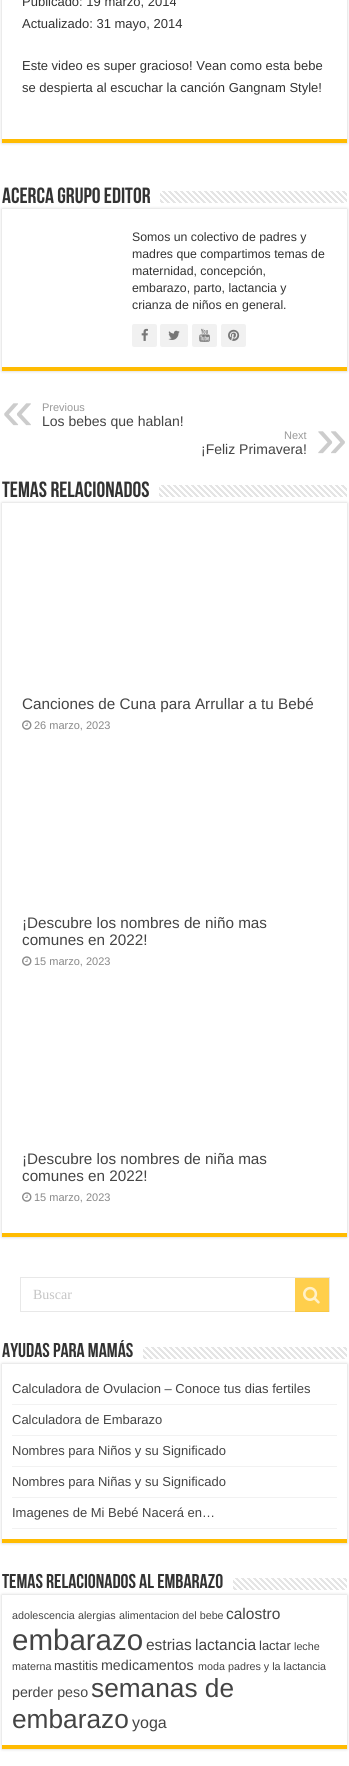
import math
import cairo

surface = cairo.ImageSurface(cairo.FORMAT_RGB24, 349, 1766)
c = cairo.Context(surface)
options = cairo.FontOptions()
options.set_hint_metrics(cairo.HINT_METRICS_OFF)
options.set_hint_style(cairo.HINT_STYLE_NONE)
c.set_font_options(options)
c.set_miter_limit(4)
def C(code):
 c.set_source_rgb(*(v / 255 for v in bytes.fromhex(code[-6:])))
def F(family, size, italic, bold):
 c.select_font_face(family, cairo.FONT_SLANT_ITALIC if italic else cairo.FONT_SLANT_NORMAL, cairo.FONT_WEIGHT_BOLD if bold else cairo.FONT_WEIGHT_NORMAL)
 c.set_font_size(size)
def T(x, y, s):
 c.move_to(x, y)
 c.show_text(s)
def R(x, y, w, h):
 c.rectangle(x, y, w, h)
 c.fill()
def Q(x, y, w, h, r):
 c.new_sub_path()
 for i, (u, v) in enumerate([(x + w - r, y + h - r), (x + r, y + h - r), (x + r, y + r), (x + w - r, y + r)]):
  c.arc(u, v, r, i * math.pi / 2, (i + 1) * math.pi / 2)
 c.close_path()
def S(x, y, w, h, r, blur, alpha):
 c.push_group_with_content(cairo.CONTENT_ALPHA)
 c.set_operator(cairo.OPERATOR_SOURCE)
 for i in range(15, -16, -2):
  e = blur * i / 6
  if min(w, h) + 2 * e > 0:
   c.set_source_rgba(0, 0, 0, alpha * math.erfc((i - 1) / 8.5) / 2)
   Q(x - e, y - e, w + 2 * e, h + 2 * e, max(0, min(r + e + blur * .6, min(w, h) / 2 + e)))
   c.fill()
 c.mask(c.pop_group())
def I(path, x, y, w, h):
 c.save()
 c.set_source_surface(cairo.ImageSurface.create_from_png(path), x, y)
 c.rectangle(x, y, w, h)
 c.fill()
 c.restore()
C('ffffff')
c.paint()
c.save()
c.set_fill_rule(cairo.FILL_RULE_EVEN_ODD)
c.new_path()
c.move_to(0,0)
c.line_to(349,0)
c.line_to(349,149)
c.line_to(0,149)
c.close_path()
c.move_to(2,-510)
c.line_to(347,-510)
c.line_to(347,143)
c.line_to(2,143)
c.close_path()
c.clip()
C('cacaca')
S(2,-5,345,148,0,1.5,1)
c.restore()
C('ffbb01')
R(2,139,345,4)
F('Liberation Sans',13,0,0)
C('333333')
T(22,6,'Publicado: 19 marzo, 2014')
T(22,28,'Actualizado: 31 mayo, 2014')
T(22,70,'Este video es super gracioso! Vean como esta bebe')
T(22,92,'se despierta al escuchar la canción Gangnam Style!')
c.save()
c.set_fill_rule(cairo.FILL_RULE_EVEN_ODD)
c.new_path()
c.move_to(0,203)
c.line_to(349,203)
c.line_to(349,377)
c.line_to(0,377)
c.close_path()
c.move_to(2,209)
c.line_to(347,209)
c.line_to(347,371)
c.line_to(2,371)
c.close_path()
c.clip()
C('cacaca')
S(2,209,345,162,0,1.5,1)
c.restore()
F('Bebas Neue',22,0,1)
T(2,203,'Acerca Grupo Editor')
I('1.png',160,191,187,12)
C('ffbb01')
R(2,367,345,4)
F('Liberation Sans',12.3,0,0)
C('333333')
T(132,241,'Somos un colectivo de padres y')
T(132,258,'madres que compartimos temas de')
T(132,275,'maternidad, concepción,')
T(132,292,'embarazo, parto, lactancia y')
T(132,309,'crianza de niños en general.')
C('f1f1f1')
Q(132,324,25,23,2)
c.fill()
I('2.png',141,328,7,13)
Q(160,324,28,23,2)
c.fill()
I('3.png',168,330,12,10)
Q(192,324,25,23,2)
c.fill()
I('4.png',199,328,11,14)
Q(221,324,25,23,2)
c.fill()
I('5.png',228,329,12,12)
F('Liberation Sans',56,0,0)
C('cccccc')
T(2,429,'«')
F('Liberation Sans',11,0,0)
C('999999')
T(42,411,'Previous')
F('Liberation Sans',14,0,0)
C('444444')
T(42,426,'Los bebes que hablan!')
F('Liberation Sans',11,0,0)
C('999999')
T(284,439,'Next')
F('Liberation Sans',56,0,0)
C('cccccc')
T(316,457,'»')
F('Liberation Sans',14,0,0)
C('444444')
T(201,454,'¡Feliz Primavera!')
c.save()
c.set_fill_rule(cairo.FILL_RULE_EVEN_ODD)
c.new_path()
c.move_to(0,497)
c.line_to(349,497)
c.line_to(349,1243)
c.line_to(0,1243)
c.close_path()
c.move_to(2,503)
c.line_to(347,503)
c.line_to(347,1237)
c.line_to(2,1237)
c.close_path()
c.clip()
C('cacaca')
S(2,503,345,734,0,1.5,1)
c.restore()
F('Bebas Neue',22,0,1)
C('333333')
T(2,497,'Temas Relacionados')
I('6.png',159,485,188,12)
C('ffbb01')
R(2,1233,345,4)
F('Liberation Sans',15.25,0,0)
C('444444')
T(22,709,'Canciones de Cuna para Arrullar a tu Bebé')
I('7.png',22,720,10,10)
F('Liberation Sans',11,0,0)
C('888888')
T(34,729,'26 marzo, 2023')
F('Liberation Sans',15.25,0,0)
C('444444')
T(22,928,'¡Descubre los nombres de niño mas')
T(22,945,'comunes en 2022!')
I('7.png',22,956,10,10)
F('Liberation Sans',11,0,0)
C('888888')
T(34,965,'15 marzo, 2023')
F('Liberation Sans',15.25,0,0)
C('444444')
T(22,1164,'¡Descubre los nombres de niña mas')
T(22,1181,'comunes en 2022!')
I('7.png',22,1192,10,10)
F('Liberation Sans',11,0,0)
C('888888')
T(34,1201,'15 marzo, 2023')
c.rectangle(20.5,1277.5,309,34)
C('e8e8e8')
c.set_line_width(1)
c.stroke()
F('Liberation Serif',14,0,0)
C('c5c5c5')
T(33,1299,'Buscar')
c.set_source_rgba(1,0.733,0.004,0.7)
R(295,1278,34,34)
I('8.png',303,1286,17,18)
F('Bebas Neue',20,0,1)
C('333333')
T(2,1357,'Ayudas para mamás')
c.save()
c.set_fill_rule(cairo.FILL_RULE_EVEN_ODD)
c.new_path()
c.move_to(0,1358)
c.line_to(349,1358)
c.line_to(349,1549)
c.line_to(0,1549)
c.close_path()
c.move_to(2,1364)
c.line_to(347,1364)
c.line_to(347,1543)
c.line_to(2,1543)
c.close_path()
c.clip()
C('cacaca')
S(2,1364,345,179,0,1.5,1)
c.restore()
I('9.png',143,1347,204,12)
C('ffbb01')
R(2,1539,345,4)
C('f2f2f2')
R(12,1404,325,1)
F('Liberation Sans',13,0,0)
C('444444')
T(12,1393,'Calculadora de Ovulacion – Conoce tus dias fertiles')
C('f2f2f2')
R(12,1435,325,1)
C('444444')
T(12,1424,'Calculadora de Embarazo')
C('f2f2f2')
R(12,1466,325,1)
C('444444')
T(12,1455,'Nombres para Niños y su Significado')
C('f2f2f2')
R(12,1497,325,1)
C('444444')
T(12,1486,'Nombres para Niñas y su Significado')
C('f2f2f2')
R(12,1528,325,1)
C('444444')
T(12,1517,'Imagenes de Mi Bebé Nacerá en…')
F('Bebas Neue',20,0,1)
C('333333')
T(2,1588,'Temas relacionados al embarazo')
c.save()
c.set_fill_rule(cairo.FILL_RULE_EVEN_ODD)
c.new_path()
c.move_to(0,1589)
c.line_to(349,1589)
c.line_to(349,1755)
c.line_to(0,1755)
c.close_path()
c.move_to(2,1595)
c.line_to(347,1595)
c.line_to(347,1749)
c.line_to(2,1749)
c.close_path()
c.clip()
C('cacaca')
S(2,1595,345,154,0,1.5,1)
c.restore()
I('10.png',233,1578,114,12)
C('ffbb01')
R(2,1745,345,4)
F('Liberation Sans',10.75,0,0)
C('444444')
T(12,1619,'adolescencia')
T(78,1619,'alergias')
T(119,1619,'alimentacion del bebe')
F('Liberation Sans',15.5,0,0)
T(226,1619,'calostro')
F('Liberation Sans',29.5,0,0)
T(12,1650,'embarazo')
F('Liberation Sans',15.5,0,0)
T(146,1650,'estrias')
T(195,1650,'lactancia')
F('Liberation Sans',13,0,0)
T(259,1650,'lactar')
F('Liberation Sans',10.75,0,0)
T(294,1650,'leche')
T(12,1670,'materna')
F('Liberation Sans',13,0,0)
T(54,1670,'mastitis')
F('Liberation Sans',14.25,0,0)
T(101,1670,'medicamentos')
F('Liberation Sans',10.75,0,0)
T(198,1670,'moda')
T(228,1670,'padres y la lactancia')
F('Liberation Sans',14.25,0,0)
T(12,1697,'perder peso')
F('Liberation Sans',26.25,0,0)
T(91,1697,'semanas de')
T(12,1728,'embarazo')
F('Liberation Sans',16,0,0)
T(132,1728,'yoga')
surface.write_to_png('o.png')
